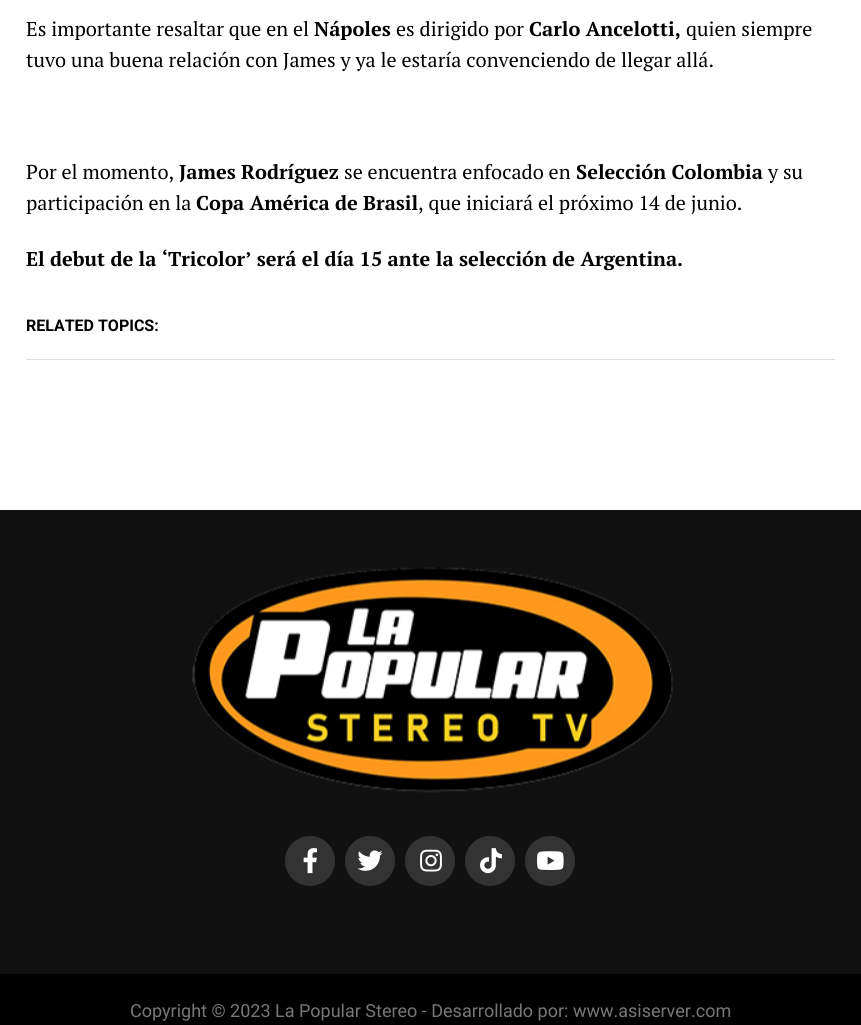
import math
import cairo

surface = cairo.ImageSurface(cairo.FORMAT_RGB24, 861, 1025)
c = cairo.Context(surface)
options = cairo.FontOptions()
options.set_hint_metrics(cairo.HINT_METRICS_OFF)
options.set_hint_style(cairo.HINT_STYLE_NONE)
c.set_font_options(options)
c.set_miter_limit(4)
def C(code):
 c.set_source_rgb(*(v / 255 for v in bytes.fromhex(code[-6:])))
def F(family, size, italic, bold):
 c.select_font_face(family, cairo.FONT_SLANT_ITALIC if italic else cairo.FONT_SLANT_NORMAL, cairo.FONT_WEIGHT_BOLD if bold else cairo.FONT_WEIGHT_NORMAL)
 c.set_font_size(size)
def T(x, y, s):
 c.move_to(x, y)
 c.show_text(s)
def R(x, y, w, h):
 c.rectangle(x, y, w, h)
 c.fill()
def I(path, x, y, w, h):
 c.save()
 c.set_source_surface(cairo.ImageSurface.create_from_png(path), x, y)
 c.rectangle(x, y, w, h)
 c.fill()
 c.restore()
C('ffffff')
c.paint()
F('PT Serif',20,0,0)
C('000000')
T(26,36,'Es importante resaltar que en el')
F('PT Serif',20,0,1)
T(314,36,'Nápoles')
F('PT Serif',20,0,0)
T(396,36,'es dirigido por')
F('PT Serif',20,0,1)
T(529,36,'Carlo Ancelotti,')
F('PT Serif',20,0,0)
T(686,36,'quien siempre')
T(26,67,'tuvo una buena relación con James y ya le estaría convenciendo de llegar allá.')
T(26,179,'Por el momento,')
F('PT Serif',20,0,1)
T(179,179,'James Rodríguez')
F('PT Serif',20,0,0)
T(344,179,'se encuentra enfocado en')
F('PT Serif',20,0,1)
T(576,179,'Selección Colombia')
F('PT Serif',20,0,0)
T(768,179,'y su')
T(26,210,'participación en la')
F('PT Serif',20,0,1)
T(196,210,'Copa América de Brasil')
F('PT Serif',20,0,0)
T(418,210,', que iniciará el próximo 14 de junio.')
F('PT Serif',20,0,1)
T(26,266,'El debut de la ‘Tricolor’ será el día 15 ante la selección de Argentina.')
F('Roboto',16,0,1)
T(26,331,'RELATED TOPICS:')
C('dddddd')
R(26,359,809,1)
C('111111')
R(0,510,861,464)
I('1.png',192,567,481,226)
C('333333')
c.arc(310,861,25,0,2 * math.pi)
c.fill()
I('2.png',303,848,14,26)
c.arc(370,861,25,0,2 * math.pi)
c.fill()
I('3.png',357,850,26,21)
c.arc(430,861,25,0,2 * math.pi)
c.fill()
I('4.png',420,849,22,23)
c.arc(490,861,25,0,2 * math.pi)
c.fill()
I('5.png',480,848,22,26)
c.arc(550,861,25,0,2 * math.pi)
c.fill()
I('6.png',537,851,27,19)
C('000000')
R(0,974,861,51)
F('Roboto',18,0,0)
C('777777')
T(130,1017,'Copyright © 2023 La Popular Stereo - Desarrollado por: www.asiserver.com')
surface.write_to_png('o.png')
